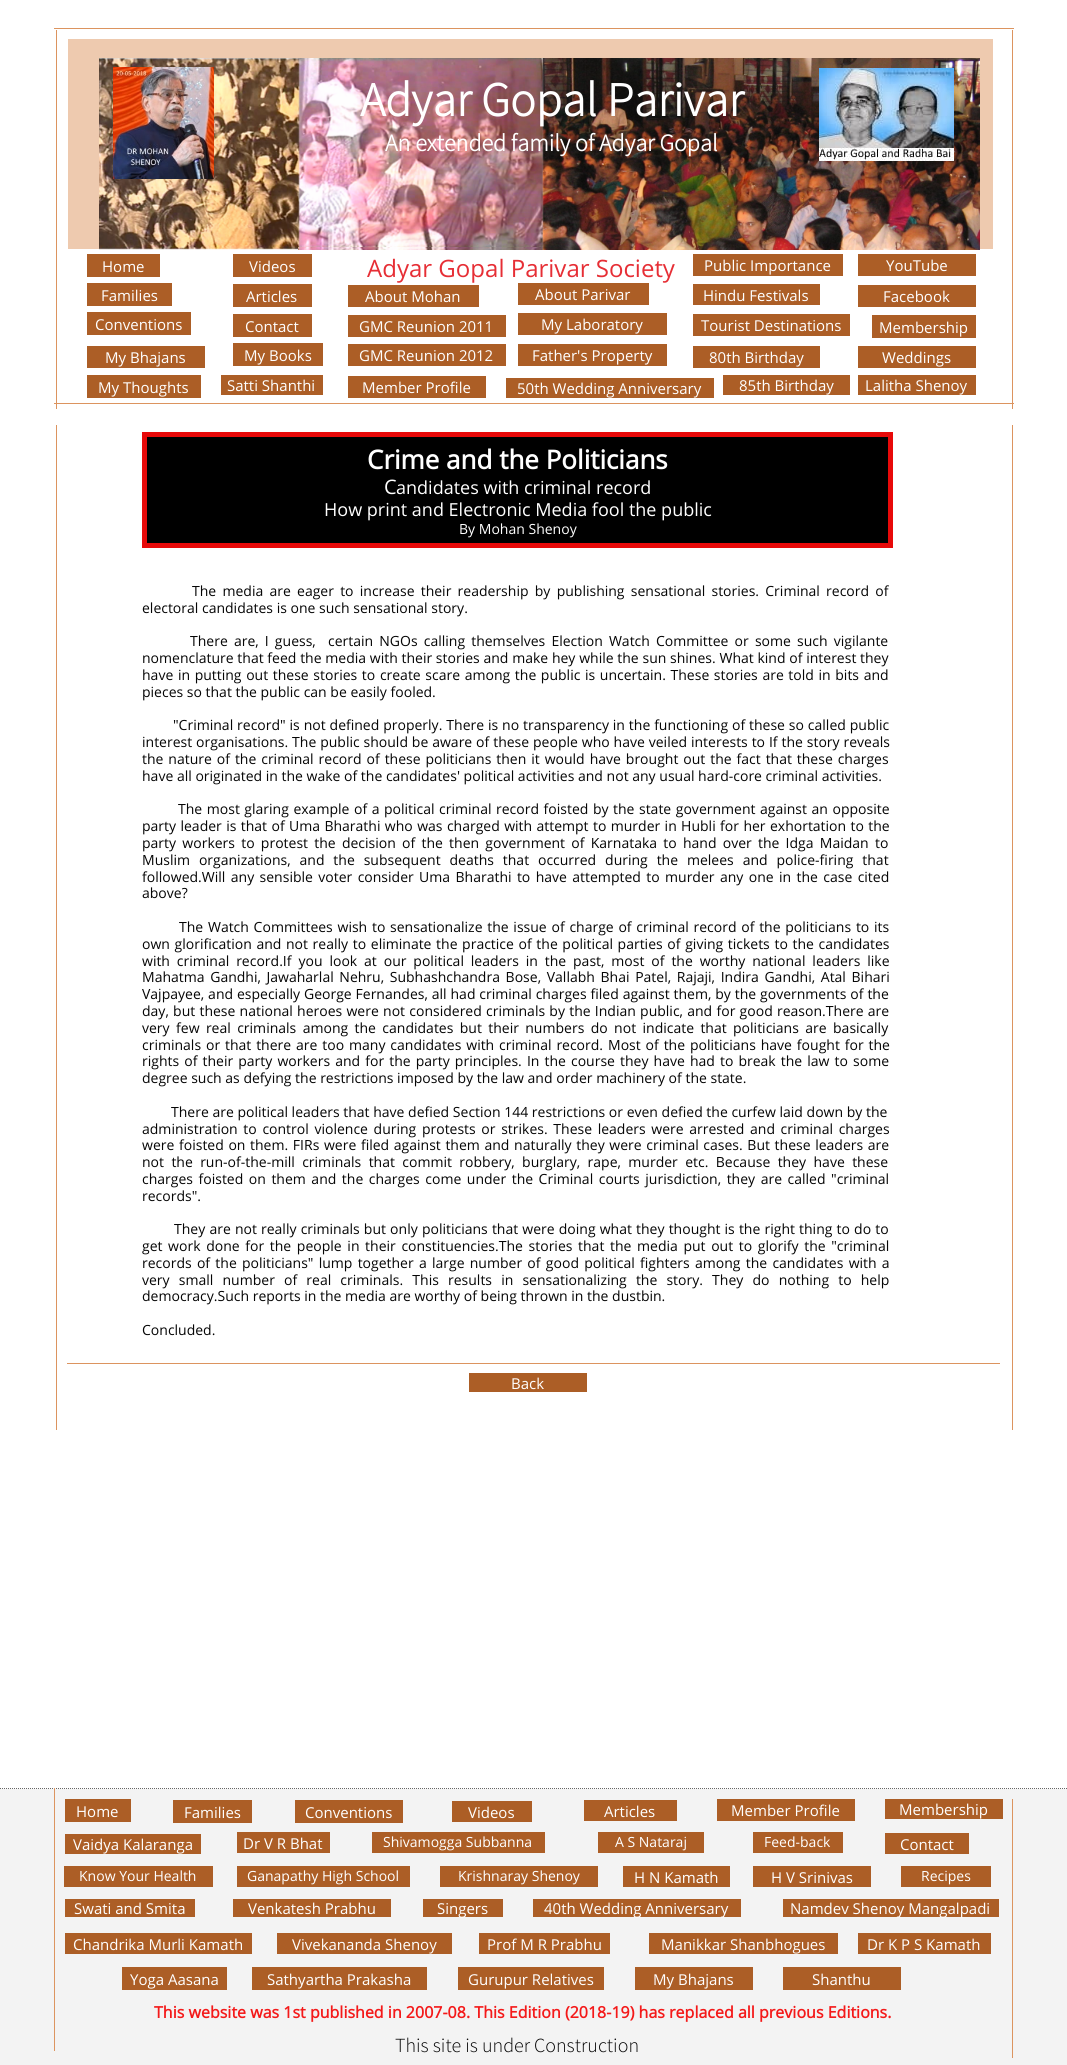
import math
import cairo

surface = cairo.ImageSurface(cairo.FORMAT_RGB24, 1067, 2065)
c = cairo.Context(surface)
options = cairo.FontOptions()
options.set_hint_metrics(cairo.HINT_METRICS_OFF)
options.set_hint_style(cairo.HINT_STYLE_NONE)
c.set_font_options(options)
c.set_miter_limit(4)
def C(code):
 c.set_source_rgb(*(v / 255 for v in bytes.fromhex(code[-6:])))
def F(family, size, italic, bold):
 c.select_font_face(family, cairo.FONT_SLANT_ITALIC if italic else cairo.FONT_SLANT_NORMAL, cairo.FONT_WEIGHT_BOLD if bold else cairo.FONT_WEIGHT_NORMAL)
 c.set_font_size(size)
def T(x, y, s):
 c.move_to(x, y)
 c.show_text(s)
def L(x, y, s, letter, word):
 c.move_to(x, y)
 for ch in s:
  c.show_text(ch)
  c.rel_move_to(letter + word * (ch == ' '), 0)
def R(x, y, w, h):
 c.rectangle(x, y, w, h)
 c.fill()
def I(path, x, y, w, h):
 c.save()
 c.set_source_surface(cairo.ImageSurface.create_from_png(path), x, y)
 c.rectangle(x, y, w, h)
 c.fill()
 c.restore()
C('ffffff')
c.paint()
C('dc945f')
R(54,28,960,1)
R(56,30,1,379)
C('ac5e26')
R(87,254,73,23)
F('Open Sans',15,0,0)
C('ffffff')
T(102,272,'Home')
C('ac5e26')
R(233,254,79,23)
C('ffffff')
T(249,272,'Videos')
C('eecaaf')
R(68,39,925,210)
I('1.png',99,58,881,192)
I('2.png',113,67,101,112)
F('Source Sans Pro',48,0,1)
C('ffffff')
T(360,116,'Adyar Gopal Parivar')
F('Source Sans Pro',24,0,1)
T(385,151,'An extended family of Adyar Gopal')
I('3.png',819,68,135,93)
F('Open Sans',24,0,0)
C('e62e35')
T(367,277,'Adyar Gopal Parivar Society')
C('ac5e26')
R(693,254,150,22)
F('Open Sans',15,0,0)
C('ffffff')
T(704,271,'Public Importance')
C('ac5e26')
R(858,254,118,22)
C('ffffff')
T(886,271,'YouTube')
C('dc945f')
R(54,403,960,1)
R(1012,30,1,379)
C('ac5e26')
R(87,283,85,23)
C('ffffff')
T(101,301,'Families')
C('ac5e26')
R(233,284,79,23)
C('ffffff')
T(246,302,'Articles')
C('ac5e26')
R(348,285,131,22)
C('ffffff')
T(365,302,'About Mohan')
C('ac5e26')
R(518,283,131,22)
C('ffffff')
T(535,300,'About Parivar')
C('ac5e26')
R(693,284,127,21)
C('ffffff')
T(703,301,'Hindu Festivals')
C('ac5e26')
R(858,285,118,22)
C('ffffff')
T(883,302,'Facebook')
C('ac5e26')
R(87,312,104,23)
C('ffffff')
T(95,330,'Conventions')
C('ac5e26')
R(233,314,79,23)
C('ffffff')
T(245,332,'Contact')
C('ac5e26')
R(348,315,158,22)
C('ffffff')
T(359,332,'GMC Reunion 2011')
C('ac5e26')
R(518,313,149,22)
C('ffffff')
T(541,330,'My Laboratory')
C('ac5e26')
R(693,314,157,22)
C('ffffff')
T(701,331,'Tourist Destinations')
C('ac5e26')
R(872,315,104,23)
C('ffffff')
T(879,333,'Membership')
C('ac5e26')
R(87,346,118,22)
C('ffffff')
T(105,363,'My Bhajans')
C('ac5e26')
R(233,343,90,23)
C('ffffff')
T(244,361,'My Books')
C('ac5e26')
R(348,344,158,22)
C('ffffff')
T(359,361,'GMC Reunion 2012')
C('ac5e26')
R(518,344,149,22)
C('ffffff')
T(532,361,'Father\'s Property')
C('ac5e26')
R(693,346,127,22)
C('ffffff')
T(709,363,'80th Birthday')
C('ac5e26')
R(858,346,118,22)
C('ffffff')
T(882,363,'Weddings')
C('ac5e26')
R(87,375,114,23)
C('ffffff')
T(98,393,'My Thoughts')
C('ac5e26')
R(221,375,102,20)
C('ffffff')
T(227,391,'Satti Shanthi')
C('ac5e26')
R(348,376,138,22)
C('ffffff')
T(362,393,'Member Profile')
C('ac5e26')
R(506,378,208,20)
C('ffffff')
T(517,394,'50th Wedding Anniversary')
C('ac5e26')
R(723,375,127,20)
C('ffffff')
T(739,391,'85th Birthday')
C('ac5e26')
R(858,375,118,20)
C('ffffff')
T(865,391,'Lalitha Shenoy')
C('dc945f')
R(56,425,1,1005)
C('000000')
c.rectangle(144.5,434.5,746,111)
c.fill_preserve()
C('e80909')
c.set_line_width(5)
c.stroke()
C('dc945f')
R(1012,425,1,1005)
F('Open Sans',26,0,1)
C('ffffff')
T(367,469,'Crime and the Politicians')
F('Open Sans',20,0,0)
T(384,494,'C')
F('Open Sans',18,0,0)
T(396,494,'andidates with criminal record')
T(324,516,'How print and Electronic Media fool the public')
F('Open Sans',14,0,0)
T(459,534,'By Mohan Shenoy')
C('050505')
L(192,596,'The media are eager to increase their readership by publishing sensational stories. Criminal record of',0,2.6)
T(142,613,'electoral candidates is one such sensational story.')
L(190,646,'There are, I guess,  certain NGOs calling themselves Election Watch Committee or some such vigilante',0,2.5)
L(142,663,'nomenclature that feed the media with their stories and make hey while the sun shines. What kind of interest they',0,.1)
L(142,680,'have in putting out these stories to create scare among the public is uncertain. These stories are told in bits and',0,1)
T(142,697,'pieces so that the public can be easily fooled.')
L(173,730,'"Criminal record" is not defined properly. There is no transparency in the functioning of these so called public',0,.25)
L(142,747,'interest organisations. The public should be aware of these people who have veiled interests to If the story reveals',0,.25)
L(142,764,'the nature of the criminal record of these politicians then it would have brought out the fact that these charges',0,1.3)
T(142,781,'have all originated in the wake of the candidates\' political activities and not any usual hard-core criminal activities.')
L(178,814,'The most glaring example of a political criminal record foisted by the state government against an opposite',0,.9)
L(142,831,'party leader is that of Uma Bharathi who was charged with attempt to murder in Hubli for her exhortation to the',0,.75)
L(142,848,'party workers to protest the decision of the then government of Karnataka to hand over the Idga Maidan to',0,2.6)
L(142,865,'Muslim organizations, and the subsequent deaths that occurred during the melees and police-firing that',0,5.25)
L(142,882,'followed.Will any sensible voter consider Uma Bharathi to have attempted to murder any one in the case cited',0,1.75)
T(142,898,'above?')
L(179,932,'The Watch Committees wish to sensationalize the issue of charge of criminal record of the politicians to its',0,1.1)
L(142,949,'own glorification and not really to eliminate the practice of the political parties of giving tickets to the candidates',0,1)
L(142,966,'with criminal record.If you look at our political leaders in the past, most of the worthy national leaders like',0,3.25)
L(142,982,'Mahatma Gandhi, Jawaharlal Nehru, Subhashchandra Bose, Vallabh Bhai Patel, Rajaji, Indira Gandhi, Atal Bihari',0,2)
L(142,999,'Vajpayee, and especially George Fernandes, all had criminal charges filed against them, by the governments of the',0,.25)
L(142,1016,'day, but these national heroes were not considered criminals by the Indian public, and for good reason.There are',0,.6)
L(142,1033,'very few real criminals among the candidates but their numbers do not indicate that politicians are basically',0,2.75)
L(142,1050,'criminals or that there are too many candidates with criminal record. Most of the politicians have fought for the',0,1.25)
L(142,1066,'rights of their party workers and for the party principles. In the course they have had to break the law to some',0,1.45)
T(142,1083,'degree such as defying the restrictions imposed by the law and order machinery of the state.')
T(171,1117,'There are political leaders that have defied Section 144 restrictions or even defied the curfew laid down by the')
L(142,1134,'administration to control violence during protests or strikes. These leaders were arrested and criminal charges',0,2)
L(142,1150,'were foisted on them. FIRs were filed against them and naturally they were criminal cases. But these leaders are',0,1)
L(142,1167,'not the run-of-the-mill criminals that commit robbery, burglary, rape, murder etc. Because they have these',0,3.75)
L(142,1184,'charges foisted on them and the charges come under the Criminal courts jurisdiction, they are called "criminal',0,1.9)
T(142,1201,'records".')
L(174,1234,'They are not really criminals but only politicians that were doing what they thought is the right thing to do to',0,.5)
L(142,1251,'get work done for the people in their constituencies.The stories that the media put out to glorify the "criminal',0,2)
L(142,1268,'records of the politicians" lump together a large number of good political fighters among the candidates with a',0,1.6)
L(142,1285,'very small number of real criminals. This results in sensationalizing the story. They do nothing to help',0,5.5)
T(142,1301,'democracy.Such reports in the media are worthy of being thrown in the dustbin.')
T(142,1335,'Concluded.')
C('dc945f')
R(67,1363,933,1)
C('ac5e26')
R(469,1373,118,19)
F('Open Sans',15,0,0)
C('ffffff')
T(511,1389,'Back')
C('f3f3f3')
R(0,1789,1067,276)
c.new_path()
c.move_to(0,1788.5)
c.line_to(1067,1788.5)
C('666666')
c.set_line_width(1)
c.set_dash([1,1])
c.stroke()
C('dc945f')
R(54,1788,1,263)
C('ac5e26')
R(65,1799,66,23)
C('ffffff')
T(76,1817,'Home')
C('ac5e26')
R(173,1800,79,23)
C('ffffff')
T(184,1818,'Families')
C('ac5e26')
R(295,1800,108,23)
C('ffffff')
T(305,1818,'Conventions')
C('ac5e26')
R(452,1801,80,21)
C('ffffff')
T(468,1818,'Videos')
C('ac5e26')
R(584,1800,93,21)
C('ffffff')
T(604,1817,'Articles')
C('ac5e26')
R(717,1799,138,22)
C('ffffff')
T(731,1816,'Member Profile')
C('ac5e26')
R(885,1799,118,20)
C('ffffff')
T(899,1815,'Membership')
C('dc945f')
R(1012,1799,1,259)
C('ac5e26')
R(65,1834,136,20)
C('ffffff')
T(73,1850,'Vaidya Kalaranga')
C('ac5e26')
R(237,1832,93,21)
C('ffffff')
T(243,1849,'Dr V R Bhat')
C('ac5e26')
R(372,1832,173,21)
F('Open Sans',14,0,0)
C('ffffff')
T(383,1847,'Shivamogga Subbanna')
C('ac5e26')
R(598,1832,106,21)
C('ffffff')
T(615,1847,'A S Nataraj')
C('ac5e26')
R(753,1832,90,21)
C('ffffff')
T(764,1847,'Feed-back')
C('ac5e26')
R(885,1833,84,21)
F('Open Sans',15,0,0)
C('ffffff')
T(900,1850,'Contact')
C('ac5e26')
R(64,1866,149,21)
F('Open Sans',14,0,0)
C('ffffff')
T(79,1881,'Know Your Health')
C('ac5e26')
R(237,1866,173,21)
C('ffffff')
T(247,1881,'Ganapathy High School')
C('ac5e26')
R(440,1866,158,21)
C('ffffff')
T(458,1881,'Krishnaray Shenoy')
C('ac5e26')
R(623,1866,107,21)
F('Open Sans',15,0,0)
C('ffffff')
T(634,1883,'H N Kamath')
C('ac5e26')
R(753,1866,118,21)
C('ffffff')
T(771,1883,'H V Srinivas')
C('ac5e26')
R(901,1866,90,21)
F('Open Sans',14,0,0)
C('ffffff')
T(921,1881,'Recipes')
C('ac5e26')
R(65,1899,130,18)
F('Open Sans',15,0,0)
C('ffffff')
T(74,1914,'Swati and Smita')
C('ac5e26')
R(233,1899,158,18)
C('ffffff')
T(248,1914,'Venkatesh Prabhu')
C('ac5e26')
R(423,1899,80,18)
C('ffffff')
T(437,1914,'Singers')
C('ac5e26')
R(533,1899,208,18)
C('ffffff')
T(544,1914,'40th Wedding Anniversary')
C('ac5e26')
R(783,1899,216,18)
C('ffffff')
T(790,1914,'Namdev Shenoy Mangalpadi')
C('ac5e26')
R(65,1933,187,21)
C('ffffff')
T(73,1950,'Chandrika Murli Kamath')
C('ac5e26')
R(277,1933,175,21)
C('ffffff')
T(292,1950,'Vivekananda Shenoy')
C('ac5e26')
R(479,1933,131,21)
C('ffffff')
T(487,1950,'Prof M R Prabhu')
C('ac5e26')
R(649,1933,189,21)
C('ffffff')
T(661,1950,'Manikkar Shanbhogues')
C('ac5e26')
R(858,1933,133,21)
C('ffffff')
T(867,1950,'Dr K P S Kamath')
C('ac5e26')
R(122,1967,105,23)
C('ffffff')
T(130,1985,'Yoga Aasana')
C('ac5e26')
R(252,1967,175,23)
C('ffffff')
T(267,1985,'Sathyartha Prakasha')
C('ac5e26')
R(458,1967,146,23)
C('ffffff')
T(468,1985,'Gurupur Relatives')
C('ac5e26')
R(635,1967,118,23)
C('ffffff')
T(653,1985,'My Bhajans')
C('ac5e26')
R(783,1967,118,23)
C('ffffff')
T(812,1985,'Shanthu')
F('Open Sans',16,0,1)
C('f41919')
T(154,2018,'This website was 1st published in 2007-08. This Edition (2018-19) has replaced all previous Editions.')
F('Source Sans Pro Light',20,0,0)
C('050505')
T(395,2052,'This site is under Construction')
surface.write_to_png('o.png')
